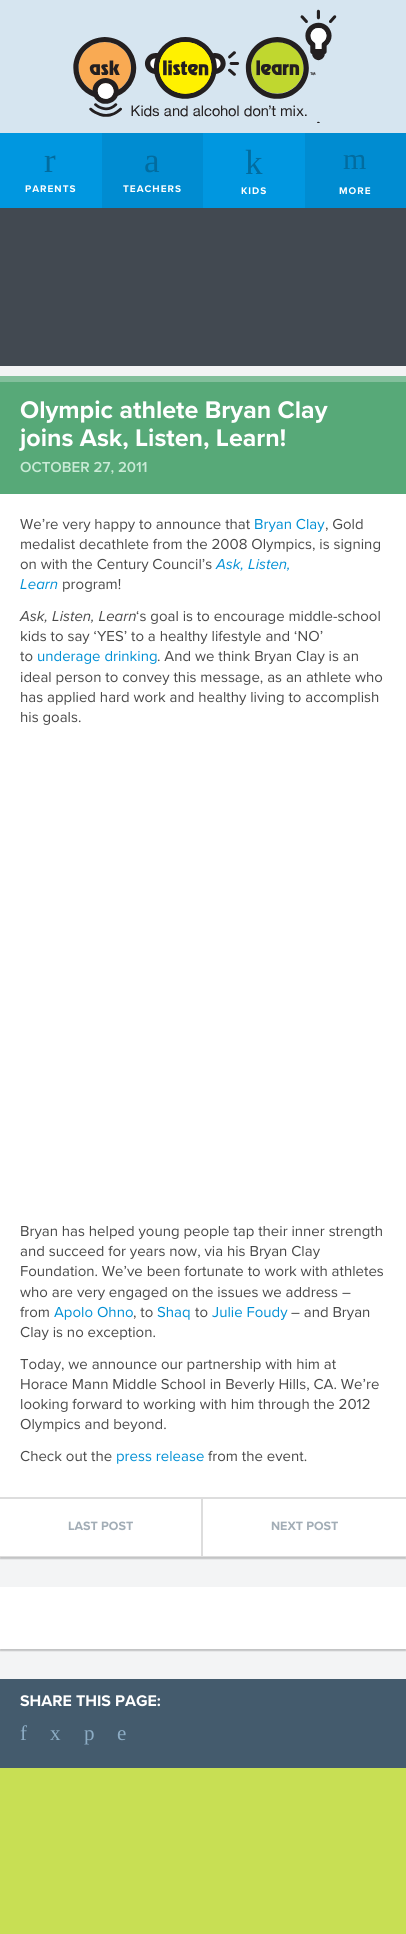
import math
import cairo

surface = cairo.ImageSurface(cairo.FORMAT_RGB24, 406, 1934)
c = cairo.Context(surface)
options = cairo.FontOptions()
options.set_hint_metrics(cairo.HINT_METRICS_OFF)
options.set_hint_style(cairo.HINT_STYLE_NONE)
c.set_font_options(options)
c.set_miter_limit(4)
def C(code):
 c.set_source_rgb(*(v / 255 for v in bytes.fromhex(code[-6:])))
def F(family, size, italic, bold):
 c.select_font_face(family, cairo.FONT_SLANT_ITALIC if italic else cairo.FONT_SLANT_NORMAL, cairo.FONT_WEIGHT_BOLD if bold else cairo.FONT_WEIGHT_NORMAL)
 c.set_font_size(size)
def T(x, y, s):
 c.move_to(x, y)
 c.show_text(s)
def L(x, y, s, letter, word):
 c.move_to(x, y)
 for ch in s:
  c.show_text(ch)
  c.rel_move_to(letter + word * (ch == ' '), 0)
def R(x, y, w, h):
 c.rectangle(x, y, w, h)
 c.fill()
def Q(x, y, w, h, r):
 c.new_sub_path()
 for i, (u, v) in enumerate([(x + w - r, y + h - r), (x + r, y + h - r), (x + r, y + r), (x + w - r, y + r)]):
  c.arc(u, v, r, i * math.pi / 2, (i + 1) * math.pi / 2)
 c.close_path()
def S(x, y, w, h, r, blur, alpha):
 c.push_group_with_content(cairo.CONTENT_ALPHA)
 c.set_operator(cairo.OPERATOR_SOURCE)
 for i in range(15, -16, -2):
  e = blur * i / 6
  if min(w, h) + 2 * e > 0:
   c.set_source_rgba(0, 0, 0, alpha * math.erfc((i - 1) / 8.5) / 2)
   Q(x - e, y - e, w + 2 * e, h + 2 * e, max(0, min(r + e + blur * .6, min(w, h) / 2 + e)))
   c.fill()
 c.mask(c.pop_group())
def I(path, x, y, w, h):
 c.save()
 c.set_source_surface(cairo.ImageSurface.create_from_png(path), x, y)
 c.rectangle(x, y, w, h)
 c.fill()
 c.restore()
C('f3f4f5')
c.paint()
C('d6e5f0')
R(0,0,406,133)
I('1.png',73,9,264,114)
C('0097e0')
R(0,133,102,75)
F('Liberation Serif',35,0,0)
C('026c9f')
L(44,172,'r',1,0)
F('Proxima Nova',10,0,1)
C('ffffff')
L(25,192,'PARENTS',1,0)
C('008cd1')
R(102,133,101,75)
F('Liberation Serif',35,0,0)
C('026c9f')
L(144,172,'a',1,0)
F('Proxima Nova',10,0,1)
C('ffffff')
L(123,192,'TEACHERS',1,0)
C('0097e0')
R(203,133,102,75)
F('Liberation Serif',35,0,0)
C('026c9f')
L(245,174,'k',1,0)
F('Proxima Nova',10,0,1)
C('ffffff')
L(241,194,'KIDS',1,0)
C('008cd1')
R(305,133,101,75)
F('Liberation Serif',30,0,0)
C('026c9f')
L(343,169,'m',1,0)
F('Proxima Nova',10,0,1)
C('ffffff')
L(339,194,'MORE',1,0)
C('424951')
R(0,208,406,158)
C('000000')
S(0,378,406,1181,0,.5,.2)
C('ffffff')
R(0,494,406,1062)
C('57a978')
R(0,382,406,112)
C('83bf9c')
R(0,376,406,6)
F('Proxima Nova',25,0,1)
C('ffffff')
T(20,418,'Olympic athlete Bryan Clay')
T(20,446,'joins Ask, Listen, Learn!')
F('Proxima Nova SemiBold',15,0,0)
C('c9ead6')
T(20,472,'OCTOBER 27, 2011')
F('Proxima Nova',15,0,0)
C('494949')
T(20,529,'We’re very happy to announce that')
C('008fd4')
T(254,529,'Bryan Clay')
C('494949')
T(325,529,', Gold')
T(20,549,'medalist decathlete from the 2008 Olympics, is signing')
T(20,569,'on with the Century Council’s')
F('Proxima Nova',15,1,0)
C('008fd4')
T(216,569,'Ask, Listen,')
T(20,589,'Learn')
F('Proxima Nova',15,0,0)
C('494949')
T(62,589,'program!')
F('Proxima Nova',15,1,0)
T(20,621,'Ask, Listen, Learn')
F('Proxima Nova',15,0,0)
T(136,621,'‘s goal is to encourage middle-school')
T(20,641,'kids to say ‘YES’ to a healthy lifestyle and ‘NO’')
T(20,661,'to')
C('008fd4')
T(37,661,'underage drinking')
C('494949')
T(157,661,'. And we think Bryan Clay is an')
T(20,682,'ideal person to convey this message, as an athlete who')
T(20,702,'has applied hard work and healthy living to accomplish')
T(20,722,'his goals.')
T(20,1236,'Bryan has helped young people tap their inner strength')
T(20,1256,'and succeed for years now, via his Bryan Clay')
T(20,1276,'Foundation. We’ve been fortunate to work with athletes')
T(20,1297,'who are very engaged on the issues we address –')
T(20,1317,'from')
C('008fd4')
T(54,1317,'Apolo Ohno')
C('494949')
T(133,1317,', to')
C('008fd4')
T(157,1317,'Shaq')
C('494949')
T(195,1317,'to')
C('008fd4')
T(212,1317,'Julie Foudy')
C('494949')
T(291,1317,'– and Bryan')
T(20,1337,'Clay is no exception.')
T(20,1369,'Today, we announce our partnership with him at')
T(20,1389,'Horace Mann Middle School in Beverly Hills, CA. We’re')
T(20,1409,'looking forward to working with him through the 2012')
T(20,1429,'Olympics and beyond.')
T(20,1461,'Check out the')
C('008fd4')
T(116,1461,'press release')
C('494949')
T(208,1461,'from the event.')
C('dddddd')
R(0,1497,406,2)
R(201,1497,2,60)
R(0,1556,406,1)
F('Proxima Nova',12.5,0,1)
C('a2adb6')
T(68,1530,'LAST POST')
T(271,1530,'NEXT POST')
C('000000')
S(0,1589,406,62,0,.5,.2)
C('ffffff')
R(0,1587,406,62)
C('445b6d')
R(0,1679,406,89)
F('Proxima Nova',16,0,1)
C('ffffff')
T(20,1706,'SHARE THIS PAGE:')
F('Liberation Serif',21,0,0)
C('8dadc5')
T(20,1740,'f')
T(50,1740,'x')
T(84,1740,'p')
T(117,1740,'e')
C('c8df54')
R(0,1768,406,166)
surface.write_to_png('o.png')
